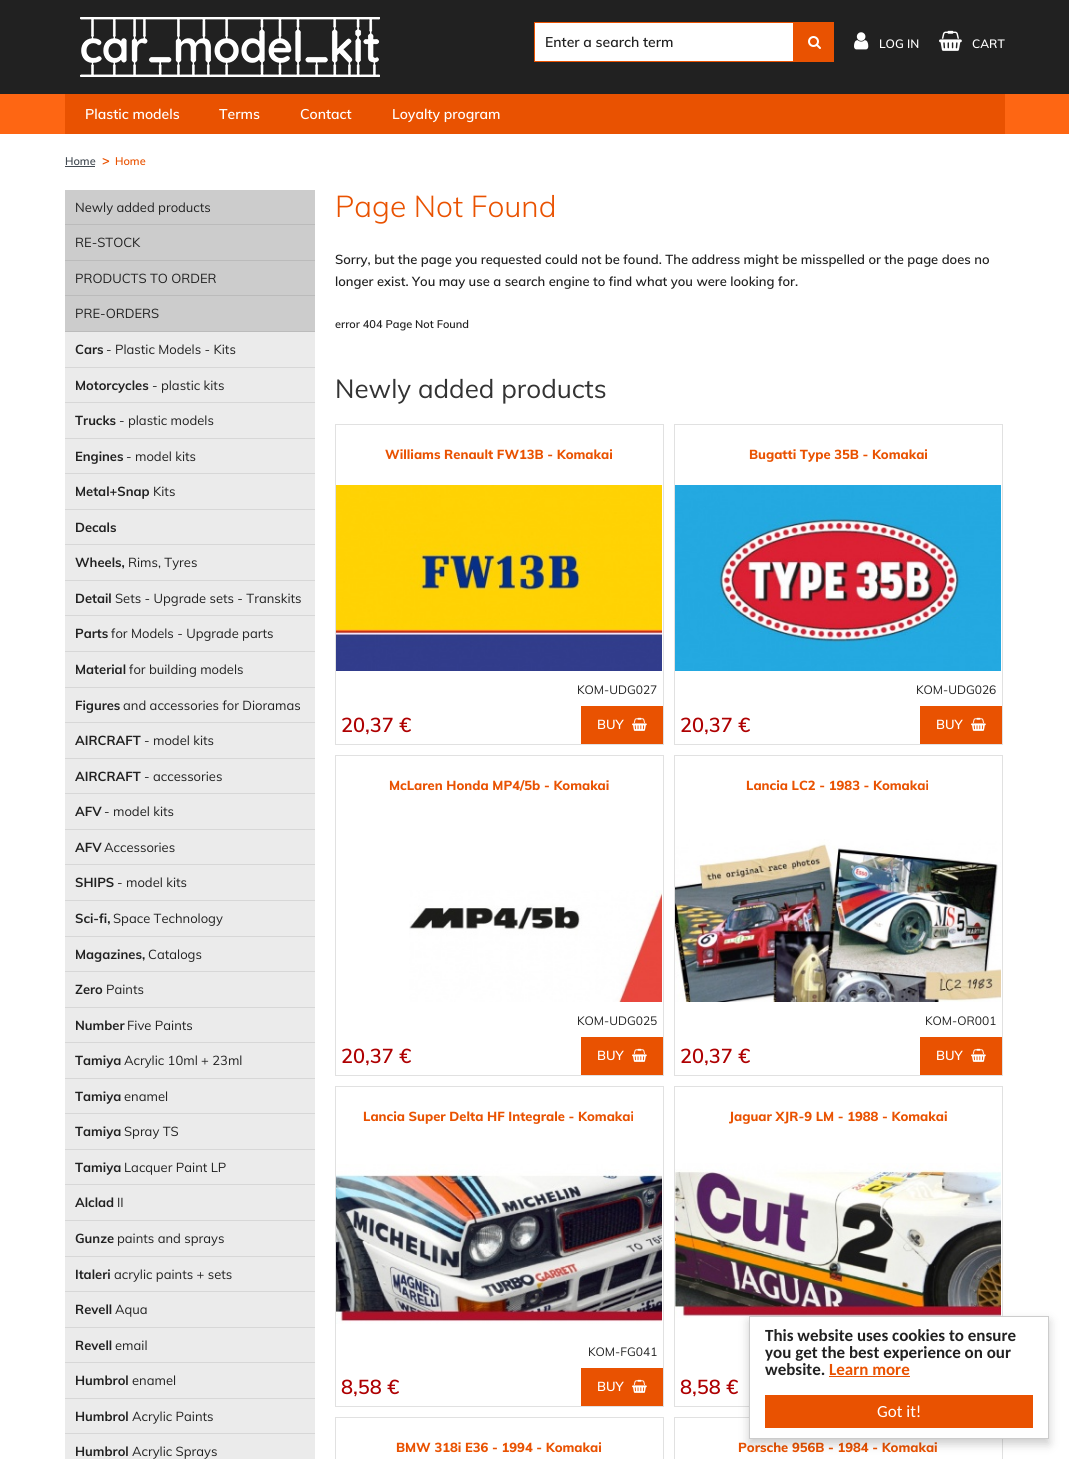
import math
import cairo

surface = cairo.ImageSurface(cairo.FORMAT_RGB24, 1069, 1459)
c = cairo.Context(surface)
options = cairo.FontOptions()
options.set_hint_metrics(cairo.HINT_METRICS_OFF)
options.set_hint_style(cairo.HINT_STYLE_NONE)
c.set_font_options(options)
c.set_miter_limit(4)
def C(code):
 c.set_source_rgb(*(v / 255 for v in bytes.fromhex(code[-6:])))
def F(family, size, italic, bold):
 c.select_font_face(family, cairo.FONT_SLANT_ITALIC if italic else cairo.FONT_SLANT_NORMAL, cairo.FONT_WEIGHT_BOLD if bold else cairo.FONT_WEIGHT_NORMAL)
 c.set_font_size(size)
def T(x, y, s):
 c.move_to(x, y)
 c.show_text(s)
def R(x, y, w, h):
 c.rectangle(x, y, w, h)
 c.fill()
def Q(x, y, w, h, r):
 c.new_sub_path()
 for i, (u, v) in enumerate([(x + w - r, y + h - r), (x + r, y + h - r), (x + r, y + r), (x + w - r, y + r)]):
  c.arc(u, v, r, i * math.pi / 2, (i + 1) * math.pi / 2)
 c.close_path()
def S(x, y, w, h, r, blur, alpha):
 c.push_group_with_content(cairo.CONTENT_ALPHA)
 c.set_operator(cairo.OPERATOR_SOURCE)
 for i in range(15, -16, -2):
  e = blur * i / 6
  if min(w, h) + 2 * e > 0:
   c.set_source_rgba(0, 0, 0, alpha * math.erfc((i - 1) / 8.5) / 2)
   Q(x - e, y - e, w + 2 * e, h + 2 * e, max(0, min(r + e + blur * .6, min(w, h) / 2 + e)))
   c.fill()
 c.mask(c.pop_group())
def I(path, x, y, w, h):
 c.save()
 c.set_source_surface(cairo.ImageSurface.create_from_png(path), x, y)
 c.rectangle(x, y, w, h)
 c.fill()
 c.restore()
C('ffffff')
c.paint()
C('212121')
R(0,0,1069,94)
I('1.png',80,17,300,60)
C('ffffff')
c.rectangle(534.5,22.5,259,39)
c.fill_preserve()
C('e95201')
c.set_line_width(1)
c.stroke()
F('Muli SemiBold',14,0,0)
C('212121')
T(545,47,'Enter a search term')
C('e95201')
R(794,22,40,40)
I('2.png',808,36,13,13)
I('3.png',854,32,15,18)
F('Muli SemiBold',12,0,0)
C('ffffff')
T(879,48,'LOG IN')
I('4.png',939,30,23,21)
T(972,48,'CART')
C('fe6613')
R(0,94,1069,40)
C('e95201')
R(65,94,940,40)
F('Muli SemiBold',14,0,0)
C('ffffff')
T(85,119,'Plastic models')
T(219,119,'Terms')
T(300,119,'Contact')
T(392,119,'Loyalty program')
F('Muli SemiBold',11,0,0)
C('424a52')
T(65,165,'Home')
R(65,166,30,1)
F('Muli',13,0,1)
C('e95201')
T(102,165,'>')
F('Muli SemiBold',11,0,0)
T(115,165,'Home')
C('ebebeb')
R(65,332,250,1127)
C('cccccc')
R(65,190,250,34)
C('bbbbbb')
R(65,224,250,1)
F('Muli',13,0,0)
C('212121')
T(75,212,'Newly added products')
C('cccccc')
R(65,225,250,35)
C('bbbbbb')
R(65,260,250,1)
C('212121')
T(75,247,'RE-STOCK')
C('cccccc')
R(65,261,250,34)
C('bbbbbb')
R(65,295,250,1)
C('212121')
T(75,283,'PRODUCTS TO ORDER')
C('cccccc')
R(65,296,250,35)
C('bbbbbb')
R(65,331,250,1)
C('212121')
T(75,318,'PRE-ORDERS')
C('d7d7d7')
R(65,367,250,1)
F('Muli',13,0,1)
C('212121')
T(75,354,'Cars')
F('Muli',13,0,0)
T(106,354,'- Plastic Models - Kits')
C('d7d7d7')
R(65,402,250,1)
F('Muli',13,0,1)
C('212121')
T(75,390,'Motorcycles')
F('Muli',13,0,0)
T(152,390,'- plastic kits')
C('d7d7d7')
R(65,438,250,1)
F('Muli',13,0,1)
C('212121')
T(75,425,'Trucks')
F('Muli',13,0,0)
T(119,425,'- plastic models')
C('d7d7d7')
R(65,473,250,1)
F('Muli',13,0,1)
C('212121')
T(75,461,'Engines')
F('Muli',13,0,0)
T(126,461,'- model kits')
C('d7d7d7')
R(65,509,250,1)
F('Muli',13,0,1)
C('212121')
T(75,496,'Metal+Snap')
F('Muli',13,0,0)
T(153,496,'Kits')
C('d7d7d7')
R(65,544,250,1)
F('Muli',13,0,1)
C('212121')
T(75,532,'Decals')
C('d7d7d7')
R(65,580,250,1)
C('212121')
T(75,567,'Wheels,')
F('Muli',13,0,0)
T(128,567,'Rims, Tyres')
C('d7d7d7')
R(65,615,250,1)
F('Muli',13,0,1)
C('212121')
T(75,603,'Detail')
F('Muli',13,0,0)
T(115,603,'Sets - Upgrade sets - Transkits')
C('d7d7d7')
R(65,651,250,1)
F('Muli',13,0,1)
C('212121')
T(75,638,'Parts')
F('Muli',13,0,0)
T(111,638,'for Models - Upgrade parts')
C('d7d7d7')
R(65,687,250,1)
F('Muli',13,0,1)
C('212121')
T(75,674,'Material')
F('Muli',13,0,0)
T(129,674,'for building models')
C('d7d7d7')
R(65,722,250,1)
F('Muli',13,0,1)
C('212121')
T(75,710,'Figures')
F('Muli',13,0,0)
T(123,710,'and accessories for Dioramas')
C('d7d7d7')
R(65,758,250,1)
F('Muli',13,0,1)
C('212121')
T(75,745,'AIRCRAFT')
F('Muli',13,0,0)
T(144,745,'- model kits')
C('d7d7d7')
R(65,793,250,1)
F('Muli',13,0,1)
C('212121')
T(75,781,'AIRCRAFT')
F('Muli',13,0,0)
T(144,781,'- accessories')
C('d7d7d7')
R(65,829,250,1)
F('Muli',13,0,1)
C('212121')
T(75,816,'AFV')
F('Muli',13,0,0)
T(104,816,'- model kits')
C('d7d7d7')
R(65,864,250,1)
F('Muli',13,0,1)
C('212121')
T(75,852,'AFV')
F('Muli',13,0,0)
T(104,852,'Accessories')
C('d7d7d7')
R(65,900,250,1)
F('Muli',13,0,1)
C('212121')
T(75,887,'SHIPS')
F('Muli',13,0,0)
T(117,887,'- model kits')
C('d7d7d7')
R(65,936,250,1)
F('Muli',13,0,1)
C('212121')
T(75,923,'Sci-fi,')
F('Muli',13,0,0)
T(113,923,'Space Technology')
C('d7d7d7')
R(65,971,250,1)
F('Muli',13,0,1)
C('212121')
T(75,959,'Magazines,')
F('Muli',13,0,0)
T(148,959,'Catalogs')
C('d7d7d7')
R(65,1007,250,1)
F('Muli',13,0,1)
C('212121')
T(75,994,'Zero')
F('Muli',13,0,0)
T(106,994,'Paints')
C('d7d7d7')
R(65,1042,250,1)
F('Muli',13,0,1)
C('212121')
T(75,1030,'Number')
F('Muli',13,0,0)
T(127,1030,'Five Paints')
C('d7d7d7')
R(65,1078,250,1)
F('Muli',13,0,1)
C('212121')
T(75,1065,'Tamiya')
F('Muli',13,0,0)
T(124,1065,'Acrylic 10ml + 23ml')
C('d7d7d7')
R(65,1113,250,1)
F('Muli',13,0,1)
C('212121')
T(75,1101,'Tamiya')
F('Muli',13,0,0)
T(124,1101,'enamel')
C('d7d7d7')
R(65,1149,250,1)
F('Muli',13,0,1)
C('212121')
T(75,1136,'Tamiya')
F('Muli',13,0,0)
T(124,1136,'Spray TS')
C('d7d7d7')
R(65,1184,250,1)
F('Muli',13,0,1)
C('212121')
T(75,1172,'Tamiya')
F('Muli',13,0,0)
T(124,1172,'Lacquer Paint LP')
C('d7d7d7')
R(65,1220,250,1)
F('Muli',13,0,1)
C('212121')
T(75,1207,'Alclad')
F('Muli',13,0,0)
T(117,1207,'II')
C('d7d7d7')
R(65,1256,250,1)
F('Muli',13,0,1)
C('212121')
T(75,1243,'Gunze')
F('Muli',13,0,0)
T(117,1243,'paints and sprays')
C('d7d7d7')
R(65,1291,250,1)
F('Muli',13,0,1)
C('212121')
T(75,1279,'Italeri')
F('Muli',13,0,0)
T(114,1279,'acrylic paints + sets')
C('d7d7d7')
R(65,1327,250,1)
F('Muli',13,0,1)
C('212121')
T(75,1314,'Revell')
F('Muli',13,0,0)
T(115,1314,'Aqua')
C('d7d7d7')
R(65,1362,250,1)
F('Muli',13,0,1)
C('212121')
T(75,1350,'Revell')
F('Muli',13,0,0)
T(115,1350,'email')
C('d7d7d7')
R(65,1398,250,1)
F('Muli',13,0,1)
C('212121')
T(75,1385,'Humbrol')
F('Muli',13,0,0)
T(132,1385,'enamel')
C('d7d7d7')
R(65,1433,250,1)
F('Muli',13,0,1)
C('212121')
T(75,1421,'Humbrol')
F('Muli',13,0,0)
T(132,1421,'Acrylic Paints')
F('Muli',13,0,1)
T(75,1456,'Humbrol')
F('Muli',13,0,0)
T(132,1456,'Acrylic Sprays')
F('Muli Light',30,0,0)
C('e95201')
T(335,217,'Page Not Found')
F('Muli SemiBold',13,0,0)
C('212121')
T(335,264,'Sorry, but the page you requested could not be found. The address might be misspelled or the page does no')
T(335,286,'longer exist. You may use a search engine to find what you were looking for.')
F('Muli SemiBold',11,0,0)
T(335,328,'error 404 Page Not Found')
F('Muli',26,0,0)
C('333333')
T(335,398,'Newly added products')
c.rectangle(335.5,424.5,328,320)
C('e1e1e1')
c.stroke()
F('Muli ExtraBold',13,0,0)
C('e95201')
T(385,459,'Williams Renault FW13B - Komakai')
I('5.png',336,485,326,186)
F('Muli',12,0,0)
C('212121')
T(577,694,'KOM-UDG027')
F('Muli SemiBold',20,0,0)
C('ae0001')
T(341,732,'20,37 €')
C('e95201')
R(581,706,82,38)
F('Muli SemiBold',13,0,0)
C('ffffff')
T(597,729,'BUY')
I('6.png',632,717,15,14)
c.rectangle(674.5,424.5,328,320)
C('e1e1e1')
c.stroke()
F('Muli ExtraBold',13,0,0)
C('e95201')
T(749,459,'Bugatti Type 35B - Komakai')
I('7.png',675,485,326,186)
F('Muli',12,0,0)
C('212121')
T(916,694,'KOM-UDG026')
F('Muli SemiBold',20,0,0)
C('ae0001')
T(680,732,'20,37 €')
C('e95201')
R(920,706,82,38)
F('Muli SemiBold',13,0,0)
C('ffffff')
T(936,729,'BUY')
I('6.png',971,717,15,14)
c.rectangle(335.5,755.5,328,320)
C('e1e1e1')
c.stroke()
F('Muli ExtraBold',13,0,0)
C('e95201')
T(389,790,'McLaren Honda MP4/5b - Komakai')
I('8.png',409,890,253,112)
F('Muli',12,0,0)
C('212121')
T(577,1025,'KOM-UDG025')
F('Muli SemiBold',20,0,0)
C('ae0001')
T(341,1063,'20,37 €')
C('e95201')
R(581,1037,82,38)
F('Muli SemiBold',13,0,0)
C('ffffff')
T(597,1060,'BUY')
I('6.png',632,1048,15,14)
c.rectangle(674.5,755.5,328,320)
C('e1e1e1')
c.stroke()
F('Muli ExtraBold',13,0,0)
C('e95201')
T(746,790,'Lancia LC2 - 1983 - Komakai')
I('9.png',675,839,326,163)
F('Muli',12,0,0)
C('212121')
T(925,1025,'KOM-OR001')
F('Muli SemiBold',20,0,0)
C('ae0001')
T(680,1063,'20,37 €')
C('e95201')
R(920,1037,82,38)
F('Muli SemiBold',13,0,0)
C('ffffff')
T(936,1060,'BUY')
I('6.png',971,1048,15,14)
c.rectangle(335.5,1086.5,328,320)
C('e1e1e1')
c.stroke()
F('Muli ExtraBold',13,0,0)
C('e95201')
T(363,1121,'Lancia Super Delta HF Integrale - Komakai')
I('10.png',336,1164,326,160)
F('Muli',12,0,0)
C('212121')
T(588,1356,'KOM-FG041')
F('Muli SemiBold',20,0,0)
C('ae0001')
T(341,1394,'8,58 €')
C('e95201')
R(581,1368,82,38)
F('Muli SemiBold',13,0,0)
C('ffffff')
T(597,1391,'BUY')
I('6.png',632,1379,15,14)
c.rectangle(674.5,1086.5,328,320)
C('e1e1e1')
c.stroke()
F('Muli ExtraBold',13,0,0)
C('e95201')
T(729,1121,'Jaguar XJR-9 LM - 1988 - Komakai')
I('11.png',675,1163,326,155)
F('Muli SemiBold',20,0,0)
C('ae0001')
T(680,1394,'8,58 €')
c.rectangle(335.5,1417.5,328,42)
C('e1e1e1')
c.stroke()
F('Muli ExtraBold',13,0,0)
C('e95201')
T(396,1452,'BMW 318i E36 - 1994 - Komakai')
c.rectangle(674.5,1417.5,328,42)
C('e1e1e1')
c.stroke()
C('e95201')
T(738,1452,'Porsche 956B - 1984 - Komakai')
C('000000')
S(749,1321,300,123,0,5,.2)
C('ffffff')
c.rectangle(749.5,1316.5,299,122)
c.fill_preserve()
C('cccccc')
c.stroke()
F('Carlito',17,0,1)
C('212121')
T(765,1341,'This website uses cookies to ensure')
T(765,1358,'you get the best experience on our')
T(765,1375,'website.')
C('e95201')
T(829,1375,'Learn more')
R(829,1376,81,1)
R(765,1395,268,33)
F('Carlito',17,0,0)
C('ffffff')
T(877,1417,'Got it!')
surface.write_to_png('o.png')
